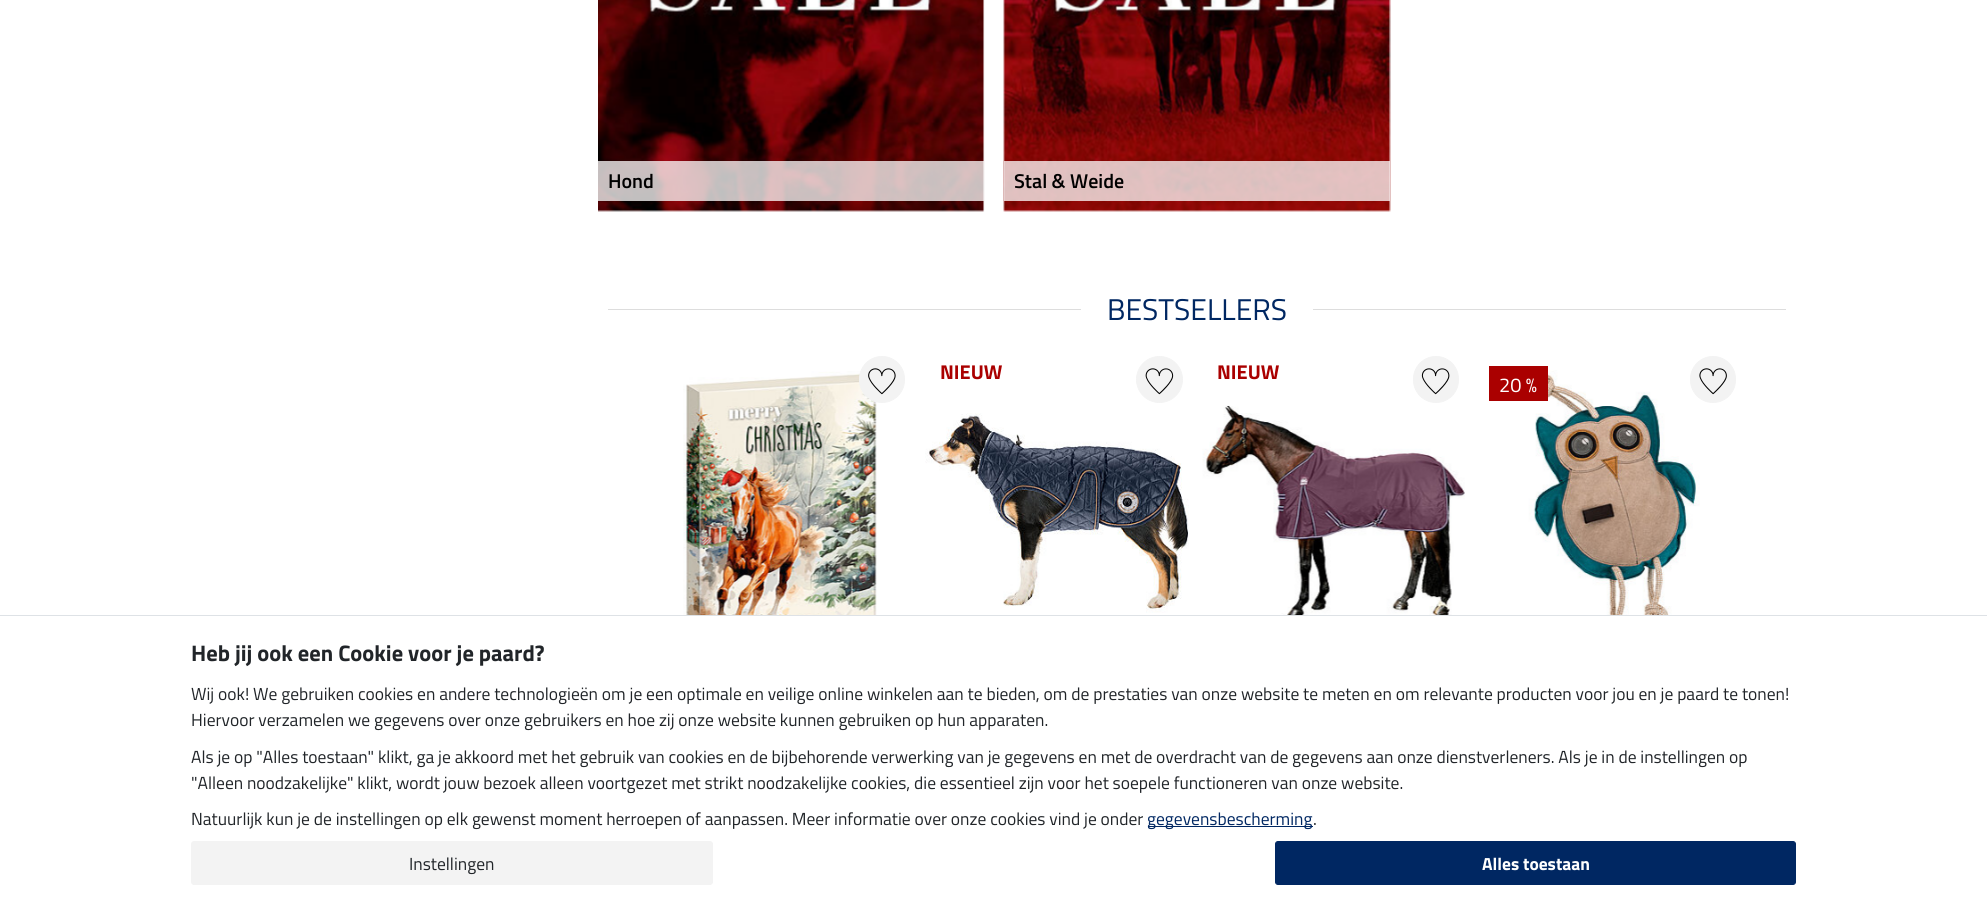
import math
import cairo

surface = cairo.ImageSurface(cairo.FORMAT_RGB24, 1987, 904)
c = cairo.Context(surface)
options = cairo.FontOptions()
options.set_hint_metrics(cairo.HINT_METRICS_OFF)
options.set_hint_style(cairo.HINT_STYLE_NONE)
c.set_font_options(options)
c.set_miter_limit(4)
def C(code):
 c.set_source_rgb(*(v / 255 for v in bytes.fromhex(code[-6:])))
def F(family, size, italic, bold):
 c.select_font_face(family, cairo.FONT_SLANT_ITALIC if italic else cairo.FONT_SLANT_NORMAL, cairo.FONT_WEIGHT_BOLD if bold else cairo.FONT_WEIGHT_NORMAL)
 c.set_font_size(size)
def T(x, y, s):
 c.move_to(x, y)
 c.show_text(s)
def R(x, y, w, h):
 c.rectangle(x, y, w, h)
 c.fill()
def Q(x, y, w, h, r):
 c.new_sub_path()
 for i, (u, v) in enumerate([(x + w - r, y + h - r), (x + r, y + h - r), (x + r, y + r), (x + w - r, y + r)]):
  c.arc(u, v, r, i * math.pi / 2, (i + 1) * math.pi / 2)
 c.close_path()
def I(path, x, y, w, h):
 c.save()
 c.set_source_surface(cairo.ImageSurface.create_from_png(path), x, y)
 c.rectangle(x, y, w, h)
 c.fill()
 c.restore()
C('ffffff')
c.paint()
I('1.png',598,0,387,212)
c.set_source_rgba(1,1,1,0.75)
R(598,161,386,40)
F('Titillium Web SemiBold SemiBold',20,0,0)
C('000000')
T(608,188,'Hond')
I('2.png',1003,0,388,212)
c.set_source_rgba(1,1,1,0.75)
R(1004,161,386,40)
C('000000')
T(1014,188,'Stal & Weide')
C('dddddd')
R(608,309,473,1)
F('Titillium Web',30,0,0)
C('002762')
T(1107,320,'BESTSELLERS')
C('dddddd')
R(1313,309,473,1)
I('3.png',683,371,194,244)
C('f3f3f3')
Q(859.5,356.5,45,46,22.5)
c.fill_preserve()
c.set_line_width(1)
c.stroke()
I('4.png',868,368,28,27)
F('Titillium Web',20,0,1)
C('aa0000')
T(940,379,'NIEUW')
C('f3f3f3')
c.new_path()
c.arc(1159.5,379.5,23,0,2 * math.pi)
c.fill_preserve()
c.stroke()
I('5.png',1145,368,29,27)
I('6.png',925,413,264,200)
C('aa0000')
T(1217,379,'NIEUW')
C('f3f3f3')
Q(1413.5,356.5,45,46,22.5)
c.fill_preserve()
c.stroke()
I('7.png',1421,368,29,27)
I('8.png',1202,405,263,210)
I('9.png',1528,370,172,245)
C('aa0000')
R(1489,366,59,35)
F('Titillium Web',20,0,0)
C('ffffff')
T(1499,392,'20 %')
C('f3f3f3')
Q(1690.5,356.5,45,46,22.5)
c.fill_preserve()
c.stroke()
I('10.png',1699,368,28,27)
C('dee2e6')
R(0,615,1987,1)
F('Titillium Web',22.5,0,1)
C('212529')
T(191,661,'Heb jij ook een Cookie voor je paard?')
F('Titillium Web',17.5,0,0)
T(191,700,'Wij ook! We gebruiken cookies en andere technologieën om je een optimale en veilige online winkelen aan te bieden, om de prestaties van onze website te meten en om relevante producten voor jou en je paard te tonen!')
T(191,726,'Hiervoor verzamelen we gegevens over onze gebruikers en hoe zij onze website kunnen gebruiken op hun apparaten.')
T(191,763,'Als je op "Alles toestaan" klikt, ga je akkoord met het gebruik van cookies en de bijbehorende verwerking van je gegevens en met de overdracht van de gegevens aan onze dienstverleners. Als je in de instellingen op')
T(191,789,'"Alleen noodzakelijke" klikt, wordt jouw bezoek alleen voortgezet met strikt noodzakelijke cookies, die essentieel zijn voor het soepele functioneren van onze website.')
T(191,825,'Natuurlijk kun je de instellingen op elk gewenst moment herroepen of aanpassen. Meer informatie over onze cookies vind je onder')
C('002762')
R(1148,826,165,1)
T(1147,825,'gegevensbescherming')
C('212529')
T(1313,825,'.')
C('f3f3f3')
Q(191.5,841.5,521,43,2.5)
c.fill_preserve()
c.stroke()
C('212529')
T(409,870,'Instellingen')
C('002762')
Q(1275.5,841.5,520,43,2.5)
c.fill_preserve()
c.stroke()
F('Titillium Web',17.5,0,1)
C('ffffff')
T(1482,870,'Alles toestaan')
surface.write_to_png('o.png')
